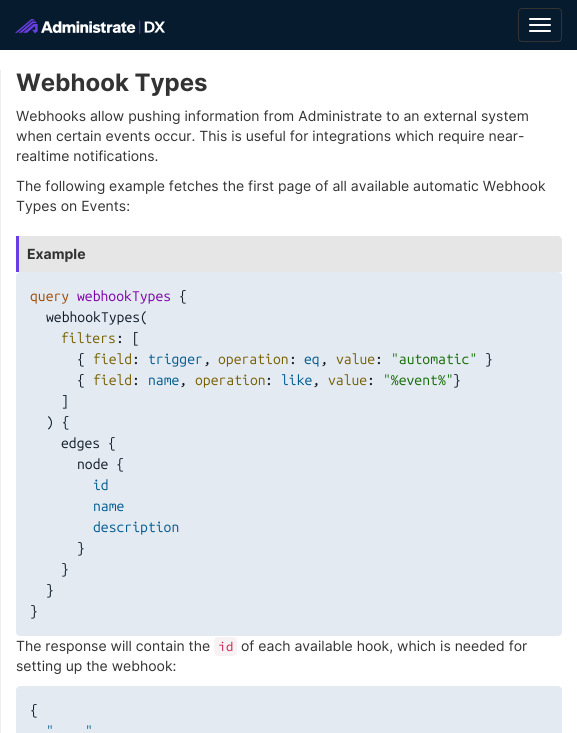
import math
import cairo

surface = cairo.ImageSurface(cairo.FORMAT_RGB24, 577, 733)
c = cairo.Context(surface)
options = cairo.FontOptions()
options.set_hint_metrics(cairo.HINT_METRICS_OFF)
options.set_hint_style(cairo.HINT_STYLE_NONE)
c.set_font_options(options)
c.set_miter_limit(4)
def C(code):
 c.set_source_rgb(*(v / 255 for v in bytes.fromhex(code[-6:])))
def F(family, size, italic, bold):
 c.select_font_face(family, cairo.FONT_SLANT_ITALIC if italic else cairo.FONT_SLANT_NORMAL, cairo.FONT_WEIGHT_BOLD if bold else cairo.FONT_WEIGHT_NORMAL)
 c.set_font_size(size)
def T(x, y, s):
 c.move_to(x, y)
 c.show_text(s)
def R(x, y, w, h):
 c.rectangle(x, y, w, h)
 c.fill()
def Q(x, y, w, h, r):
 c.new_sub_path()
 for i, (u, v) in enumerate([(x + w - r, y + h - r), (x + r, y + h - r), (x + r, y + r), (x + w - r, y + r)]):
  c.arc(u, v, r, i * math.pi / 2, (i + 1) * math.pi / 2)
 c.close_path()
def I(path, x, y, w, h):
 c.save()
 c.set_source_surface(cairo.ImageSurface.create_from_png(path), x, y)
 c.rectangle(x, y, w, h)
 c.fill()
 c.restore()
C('ffffff')
c.paint()
C('071b2f')
R(0,0,577,50)
I('1.png',15,19,150,15)
Q(518.5,8.5,43,33,3.5)
C('333333')
c.set_line_width(1)
c.stroke()
C('ffffff')
Q(529,18,22,2,1)
c.fill()
Q(529,24,22,2,1)
c.fill()
Q(529,30,22,2,1)
c.fill()
C('eeeeee')
R(0,70,1,663)
F('Inter',24,0,1)
C('333333')
T(16,91,'Webhook Types')
F('Inter',14,0,0)
T(16,121,'Webhooks allow pushing information from Administrate to an external system')
T(16,141,'when certain events occur. This is useful for integrations which require near-')
T(16,161,'realtime notifications.')
T(16,191,'The following example fetches the first page of all available automatic Webhook')
T(16,211,'Types on Events:')
C('e6e6e6')
c.new_path()
c.move_to(16,236)
c.line_to(558,236)
c.curve_to(560,236,562,238,562,240)
c.line_to(562,272)
c.line_to(16,272)
c.close_path()
c.fill()
C('6a3ce3')
R(16,236,3,36)
F('Inter',14,0,1)
C('333333')
T(27,259,'Example')
C('e3eaf2')
Q(16,272,546,364,4)
c.fill()
F('Ubuntu Mono',14,0,0)
C('a04900')
T(30,301,'query')
C('7c00aa')
T(77,301,'webhookTypes')
C('111b27')
T(179,301,'{')
T(46,322,'webhookTypes(')
C('755f00')
T(61,343,'filters')
C('111b27')
T(116,343,': [')
T(77,364,'{')
C('755f00')
T(93,364,'field')
C('111b27')
T(132,364,':')
C('005a8e')
T(148,364,'trigger')
C('111b27')
T(203,364,',')
C('755f00')
T(218,364,'operation')
C('111b27')
T(289,364,':')
C('005a8e')
T(304,364,'eq')
C('111b27')
T(320,364,',')
C('755f00')
T(336,364,'value')
C('111b27')
T(375,364,':')
C('116b00')
T(391,364,'"automatic"')
C('111b27')
T(485,364,'}')
T(77,385,'{')
C('755f00')
T(93,385,'field')
C('111b27')
T(132,385,':')
C('005a8e')
T(148,385,'name')
C('111b27')
T(179,385,',')
C('755f00')
T(195,385,'operation')
C('111b27')
T(265,385,':')
C('005a8e')
T(281,385,'like')
C('111b27')
T(312,385,',')
C('755f00')
T(328,385,'value')
C('111b27')
T(367,385,':')
C('116b00')
T(383,385,'"%event%"')
C('111b27')
T(453,385,'}')
T(61,406,']')
T(46,427,') {')
T(61,448,'edges {')
T(77,469,'node {')
C('005a8e')
T(93,490,'id')
T(93,511,'name')
T(93,532,'description')
C('111b27')
T(77,553,'}')
T(61,574,'}')
T(46,595,'}')
T(30,616,'}')
F('Inter',14,0,0)
C('333333')
T(16,651,'The response will contain the')
C('f9f2f4')
Q(214,637,23,19,4)
c.fill()
F('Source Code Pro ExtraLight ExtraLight',13,0,0)
C('c7254e')
T(218,651,'id')
F('Inter',14,0,0)
C('333333')
T(241,651,'of each available hook, which is needed for')
T(16,671,'setting up the webhook:')
C('e3eaf2')
c.new_path()
c.move_to(20,686)
c.line_to(558,686)
c.curve_to(560,686,562,688,562,690)
c.line_to(562,733)
c.line_to(16,733)
c.line_to(16,690)
c.curve_to(16,688,18,686,20,686)
c.close_path()
c.fill()
F('Ubuntu Mono',14,0,0)
C('111b27')
T(30,715,'{')
C('005a8e')
T(46,736,'"')
T(85,736,'"')
surface.write_to_png('o.png')
